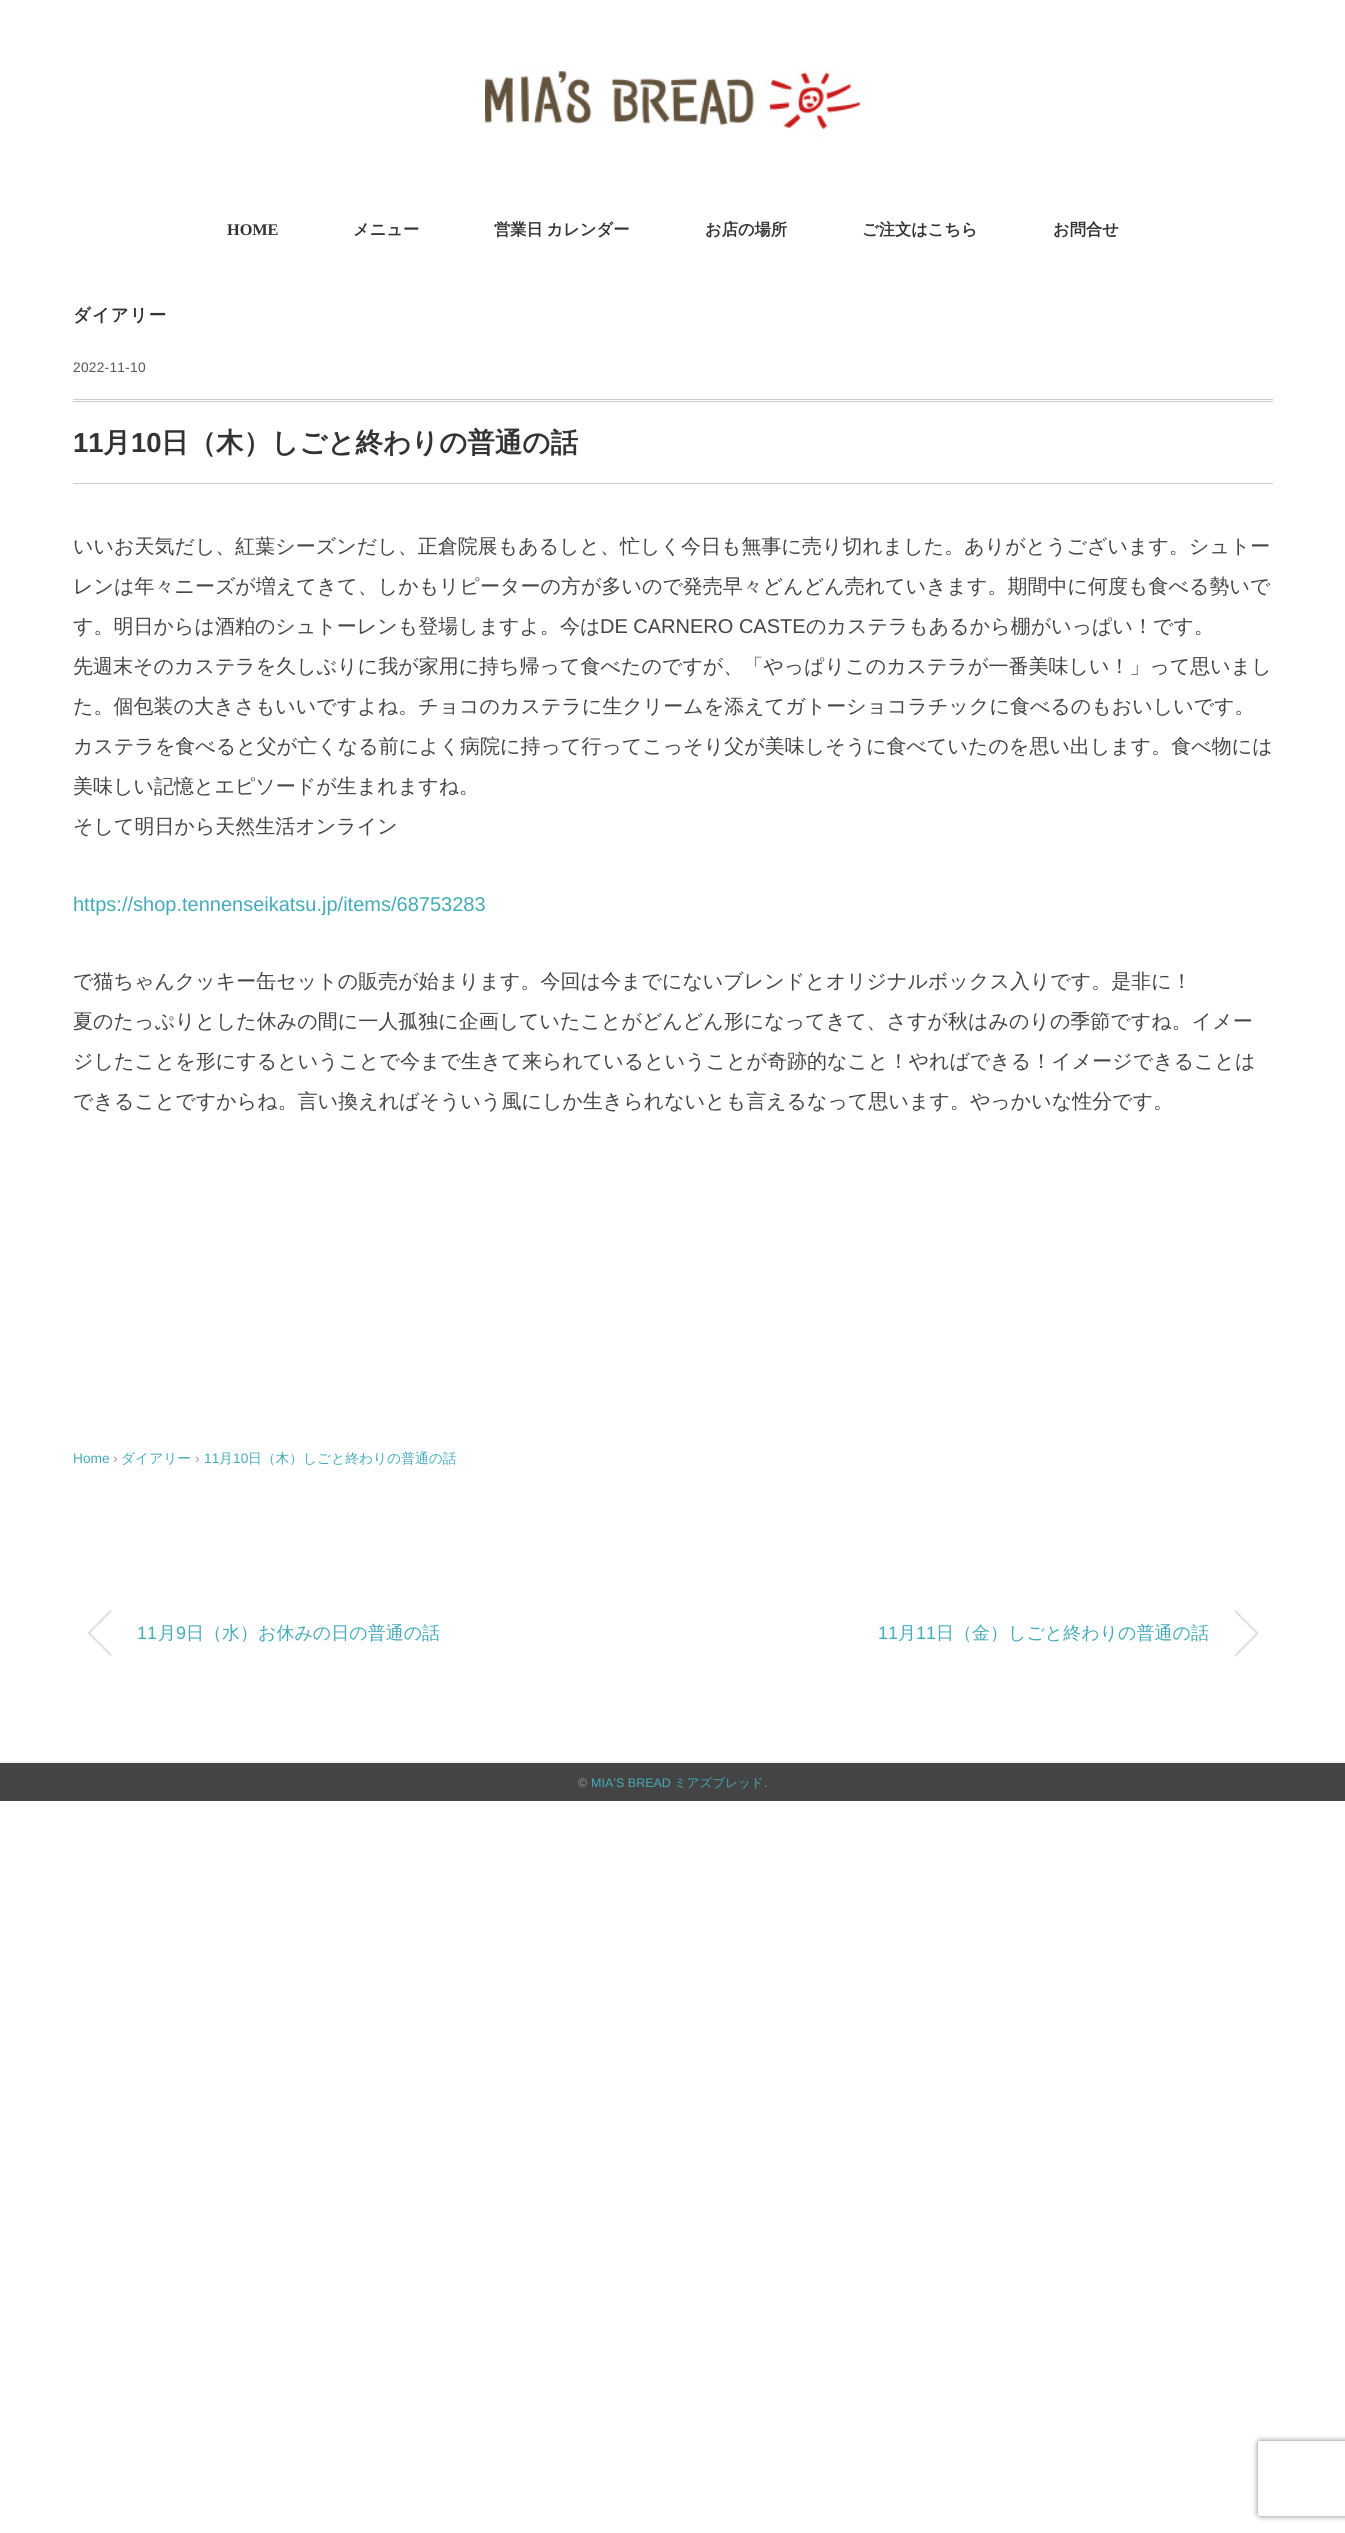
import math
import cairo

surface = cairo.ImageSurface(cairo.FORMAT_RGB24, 1345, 2533)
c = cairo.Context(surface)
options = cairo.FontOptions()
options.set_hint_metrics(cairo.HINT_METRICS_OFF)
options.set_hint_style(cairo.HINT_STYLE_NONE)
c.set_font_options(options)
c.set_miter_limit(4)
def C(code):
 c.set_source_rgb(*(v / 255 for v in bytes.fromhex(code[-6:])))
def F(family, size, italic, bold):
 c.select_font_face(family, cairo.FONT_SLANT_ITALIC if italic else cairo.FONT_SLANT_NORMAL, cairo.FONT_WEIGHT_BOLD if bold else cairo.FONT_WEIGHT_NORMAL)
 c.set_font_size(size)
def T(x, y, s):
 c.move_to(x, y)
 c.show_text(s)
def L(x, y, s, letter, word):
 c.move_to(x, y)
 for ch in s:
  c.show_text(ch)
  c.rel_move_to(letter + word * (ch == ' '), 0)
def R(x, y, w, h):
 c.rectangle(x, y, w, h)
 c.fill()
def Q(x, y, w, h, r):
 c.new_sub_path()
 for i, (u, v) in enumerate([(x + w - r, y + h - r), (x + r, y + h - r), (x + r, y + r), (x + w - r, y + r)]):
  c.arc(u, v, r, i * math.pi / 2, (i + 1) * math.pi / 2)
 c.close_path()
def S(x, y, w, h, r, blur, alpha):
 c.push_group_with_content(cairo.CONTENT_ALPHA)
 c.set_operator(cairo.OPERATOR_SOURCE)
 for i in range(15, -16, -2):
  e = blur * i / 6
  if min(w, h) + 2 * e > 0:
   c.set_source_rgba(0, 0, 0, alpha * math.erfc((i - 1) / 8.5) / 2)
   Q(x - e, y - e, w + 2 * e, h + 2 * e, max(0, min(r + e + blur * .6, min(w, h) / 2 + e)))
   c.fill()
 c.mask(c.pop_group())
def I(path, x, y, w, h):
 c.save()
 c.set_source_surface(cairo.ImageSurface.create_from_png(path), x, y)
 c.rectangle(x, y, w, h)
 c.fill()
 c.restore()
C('ffffff')
c.paint()
I('1.png',485,67,375,71)
F('Liberation Serif',16.25,0,1)
C('333333')
T(227,235,'HOME')
F('WenQuanYi Zen Hei',16.25,0,1)
T(353,235,'メニュー')
L(494,235,'営業日 カレンダー',0,-1)
T(705,235,'お店の場所')
T(862,235,'ご注文はこちら')
T(1053,235,'お問合せ')
F('WenQuanYi Zen Hei',17.5,0,1)
L(73,321,'ダイアリー',1,0)
F('Liberation Sans',13.75,0,0)
C('555555')
L(73,372,'2022-11-10',.25,0)
C('cccccc')
R(73,399,1200,1)
R(73,401,1200,1)
R(73,483,1200,1)
F('Liberation Sans',27.5,0,1)
C('333333')
T(73,452,'11')
F('WenQuanYi Zen Hei',27.5,0,1)
T(103,452,'月')
F('Liberation Sans',27.5,0,1)
T(131,452,'10')
F('WenQuanYi Zen Hei',27.5,0,1)
T(161,452,'日（木）しごと終わりの普通の話')
F('WenQuanYi Zen Hei Medium',20,0,0)
C('444444')
T(73,553,'いいお天気だし、紅葉シーズンだし、正倉院展もあるしと、忙しく今日も無事に売り切れました。ありがとうございます。シュトー')
T(73,593,'レンは年々ニーズが増えてきて、しかもリピーターの方が多いので発売早々どんどん売れていきます。期間中に何度も食べる勢いで')
T(73,633,'す。明日からは酒粕のシュトーレンも登場しますよ。今は')
F('Liberation Sans',20,0,0)
T(600,633,'DE CARNERO CASTE')
F('WenQuanYi Zen Hei Medium',20,0,0)
T(806,633,'のカステラもあるから棚がいっぱい！です。')
T(73,673,'先週末そのカステラを久しぶりに我が家用に持ち帰って食べたのですが、「やっぱりこのカステラが一番美味しい！」って思いまし')
T(73,713,'た。個包装の大きさもいいですよね。チョコのカステラに生クリームを添えてガトーショコラチックに食べるのもおいしいです。')
T(73,753,'カステラを食べると父が亡くなる前によく病院に持って行ってこっそり父が美味しそうに食べていたのを思い出します。食べ物には')
T(73,793,'美味しい記憶とエピソードが生まれますね。')
T(73,833,'そして明日から天然生活オンライン')
F('Liberation Sans',20,0,0)
C('45aab8')
T(73,911,'https://shop.tennenseikatsu.jp/items/68753283')
F('WenQuanYi Zen Hei Medium',20,0,0)
C('444444')
T(73,988,'で猫ちゃんクッキー缶セットの販売が始まります。今回は今までにないブレンドとオリジナルボックス入りです。是非に！')
T(73,1028,'夏のたっぷりとした休みの間に一人孤独に企画していたことがどんどん形になってきて、さすが秋はみのりの季節ですね。イメー')
T(73,1068,'ジしたことを形にするということで今まで生きて来られているということが奇跡的なこと！やればできる！イメージできることは')
T(73,1108,'できることですからね。言い換えればそういう風にしか生きられないとも言えるなって思います。やっかいな性分です。')
F('Liberation Sans',13.75,0,0)
C('45aab8')
T(73,1463,'Home')
C('999999')
T(113,1463,'›')
F('WenQuanYi Zen Hei Medium',13.75,0,0)
C('45aab8')
T(121,1463,'ダイアリー')
F('Liberation Sans',13.75,0,0)
C('999999')
T(195,1463,'›')
C('45aab8')
T(204,1463,'11')
F('WenQuanYi Zen Hei Medium',13.75,0,0)
T(219,1463,'月')
F('Liberation Sans',13.75,0,0)
T(233,1463,'10')
F('WenQuanYi Zen Hei Medium',13.75,0,0)
T(248,1463,'日（木）しごと終わりの普通の話')
I('2.png',87,1610,25,47)
F('Liberation Sans',18,0,0)
T(137,1639,'11')
F('WenQuanYi Zen Hei Medium',18,0,0)
T(158,1639,'月')
F('Liberation Sans',18,0,0)
T(176,1639,'9')
F('WenQuanYi Zen Hei Medium',18,0,0)
T(186,1639,'日（水）お休みの日の普通の話')
I('3.png',1234,1610,25,47)
F('Liberation Sans',18,0,0)
T(878,1639,'11')
F('WenQuanYi Zen Hei Medium',18,0,0)
T(898,1639,'月')
F('Liberation Sans',18,0,0)
T(916,1639,'11')
F('WenQuanYi Zen Hei Medium',18,0,0)
T(936,1639,'日（金）しごと終わりの普通の話')
C('f5f5f5')
R(0,1761,1345,2)
C('444444')
R(0,1763,1345,38)
F('Liberation Sans',12.5,0,0)
C('999999')
T(578,1787,'©')
C('45aab8')
T(591,1787,'MIA’S BREAD')
F('WenQuanYi Zen Hei Medium',12.5,0,0)
T(674,1787,'ミアズブレッド')
F('Liberation Sans',12.5,0,0)
C('999999')
T(764,1787,'.')
c.save()
c.set_fill_rule(cairo.FILL_RULE_EVEN_ODD)
c.new_path()
c.move_to(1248,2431)
c.line_to(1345,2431)
c.line_to(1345,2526)
c.line_to(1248,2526)
c.close_path()
c.move_to(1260.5,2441)
c.line_to(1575.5,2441)
c.curve_to(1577,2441,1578,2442,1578,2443.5)
c.line_to(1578,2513.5)
c.curve_to(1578,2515,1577,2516,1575.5,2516)
c.line_to(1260.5,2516)
c.curve_to(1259,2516,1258,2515,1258,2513.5)
c.line_to(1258,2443.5)
c.curve_to(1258,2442,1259,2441,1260.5,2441)
c.close_path()
c.clip()
C('808080')
S(1258,2441,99,75,2.5,3,1)
c.restore()
surface.write_to_png('o.png')
